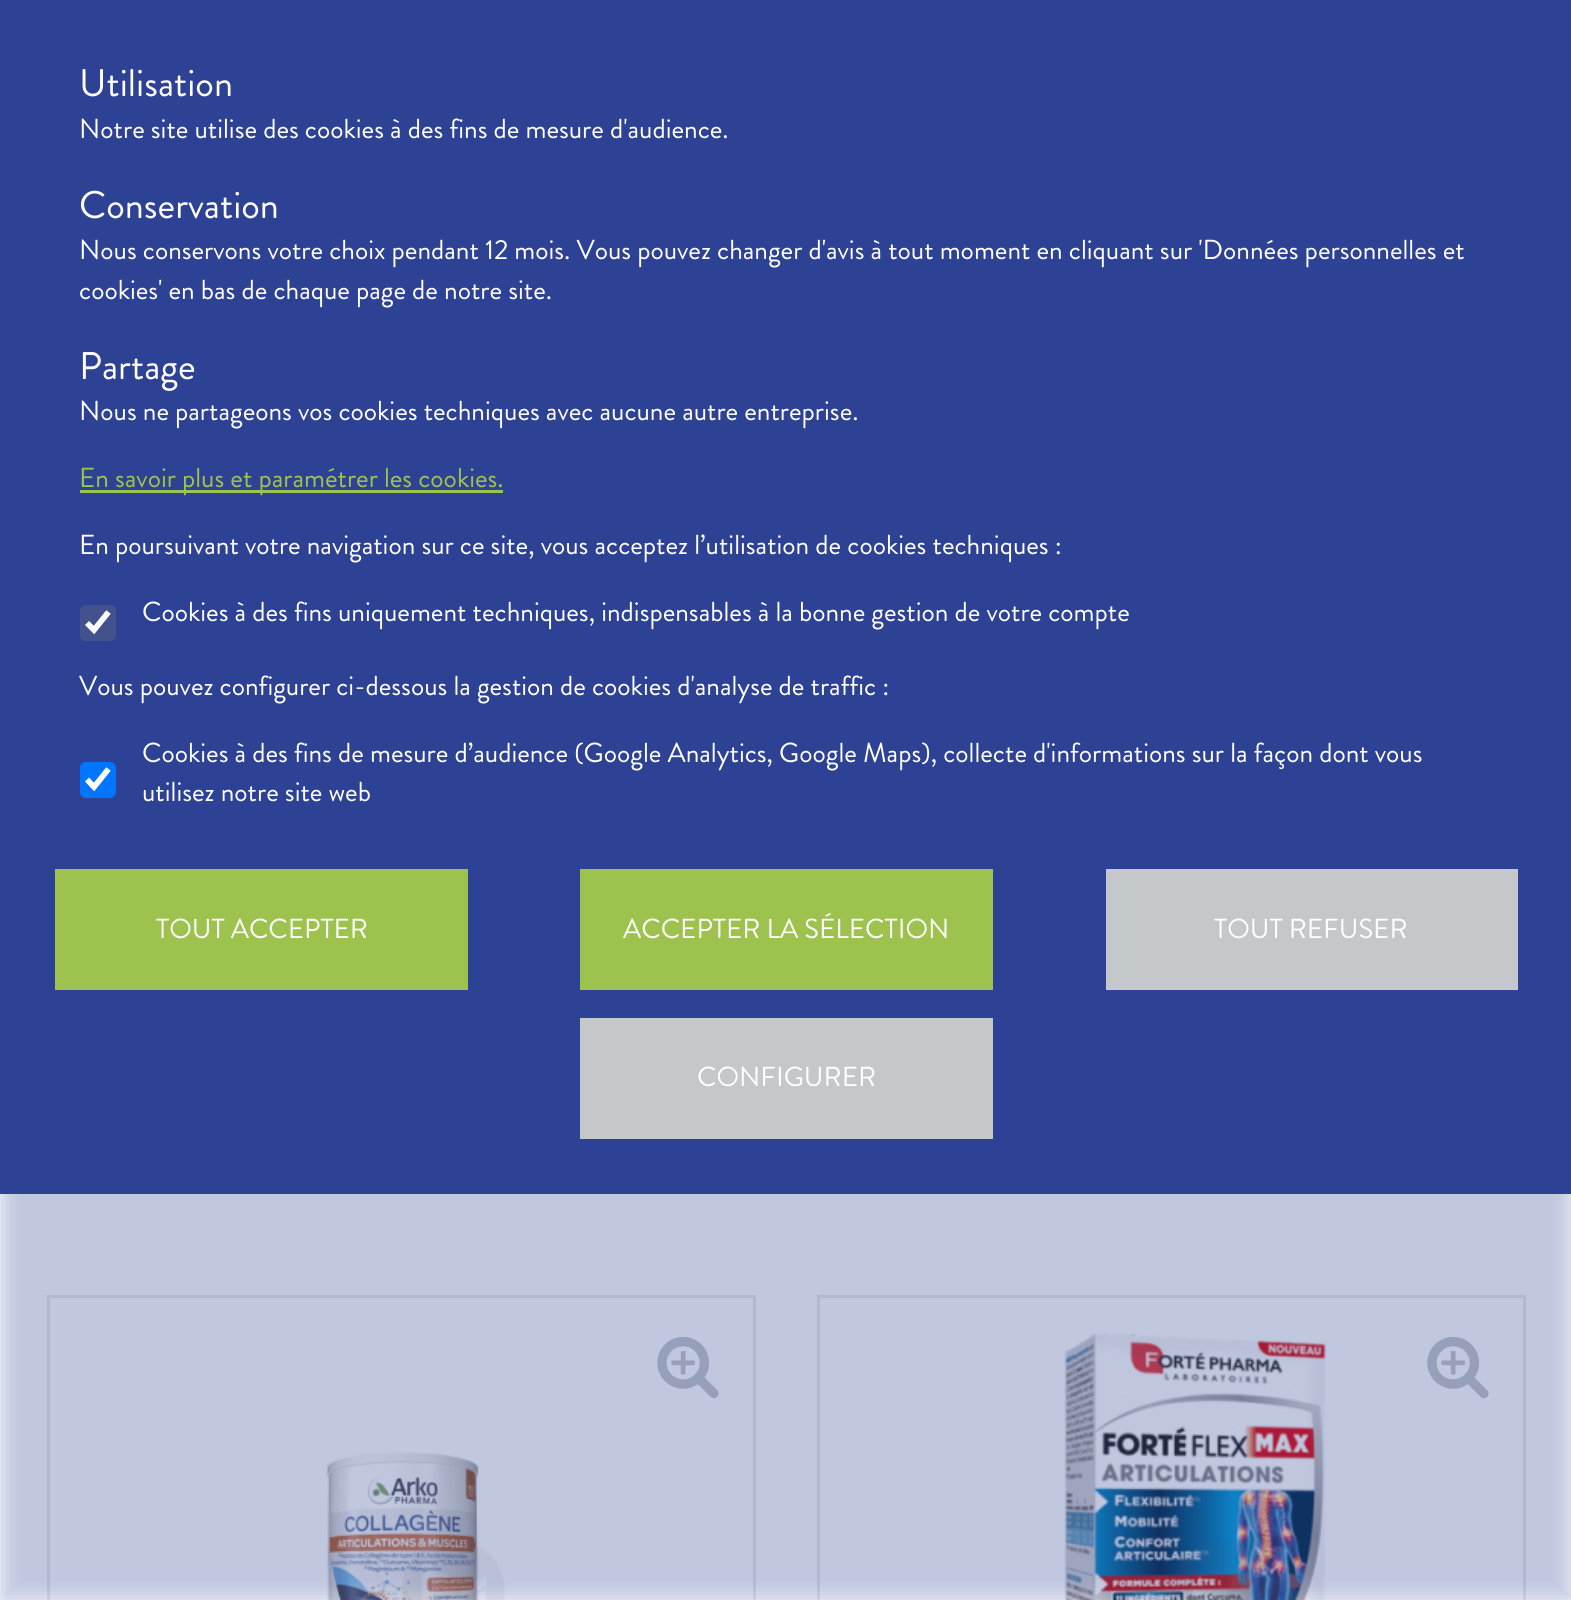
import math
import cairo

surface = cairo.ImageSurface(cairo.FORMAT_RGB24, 1571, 1600)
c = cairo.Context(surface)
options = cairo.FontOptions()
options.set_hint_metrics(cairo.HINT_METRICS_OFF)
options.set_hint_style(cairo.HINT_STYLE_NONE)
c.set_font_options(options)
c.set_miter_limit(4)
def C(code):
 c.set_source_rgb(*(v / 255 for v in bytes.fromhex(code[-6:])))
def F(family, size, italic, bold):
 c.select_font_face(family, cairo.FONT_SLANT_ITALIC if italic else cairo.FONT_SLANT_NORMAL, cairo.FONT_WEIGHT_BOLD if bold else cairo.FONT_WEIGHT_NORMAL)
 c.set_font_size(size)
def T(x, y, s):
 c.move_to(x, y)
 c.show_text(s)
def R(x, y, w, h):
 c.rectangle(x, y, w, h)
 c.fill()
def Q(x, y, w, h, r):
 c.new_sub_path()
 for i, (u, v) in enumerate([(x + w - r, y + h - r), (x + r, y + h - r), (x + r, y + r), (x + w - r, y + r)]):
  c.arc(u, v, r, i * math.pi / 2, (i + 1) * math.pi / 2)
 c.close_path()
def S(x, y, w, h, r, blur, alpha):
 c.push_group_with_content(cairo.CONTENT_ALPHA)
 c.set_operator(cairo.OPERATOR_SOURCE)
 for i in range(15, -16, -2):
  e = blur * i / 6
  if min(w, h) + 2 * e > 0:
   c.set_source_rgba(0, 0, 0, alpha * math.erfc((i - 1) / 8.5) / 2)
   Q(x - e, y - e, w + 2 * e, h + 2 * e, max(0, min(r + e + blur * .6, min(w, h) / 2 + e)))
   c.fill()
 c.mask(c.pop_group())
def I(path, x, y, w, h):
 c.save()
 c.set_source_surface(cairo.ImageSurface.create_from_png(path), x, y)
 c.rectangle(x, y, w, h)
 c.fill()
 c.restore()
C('ffffff')
c.paint()
c.rectangle(48.5,1296.5,706,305)
C('eaeaea')
c.set_line_width(3)
c.stroke()
I('1.png',657,1336,62,63)
I('2.png',326,1452,179,148)
c.rectangle(818.5,1296.5,706,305)
c.stroke()
I('3.png',1064,1333,263,267)
I('1.png',1427,1336,62,63)
C('2d4295')
S(0,0,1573,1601,0,11,.3)
C('2d4295')
R(0,0,1571,1194)
F('Brandon Grotesque',38.5,0,0)
C('ffffff')
T(79,96,'Utilisation')
F('Brandon Grotesque',27.5,0,0)
T(79,138,'Notre site utilise des cookies à des fins de mesure d\'audience.')
F('Brandon Grotesque',38.5,0,0)
T(79,218,'Conservation')
F('Brandon Grotesque',27.5,0,0)
T(79,259,'Nous conservons votre choix pendant 12 mois. Vous pouvez changer d\'avis à tout moment en cliquant sur \'Données personnelles et')
T(79,299,'cookies\' en bas de chaque page de notre site.')
F('Brandon Grotesque',38.5,0,0)
T(79,379,'Partage')
F('Brandon Grotesque',27.5,0,0)
T(79,420,'Nous ne partageons vos cookies techniques avec aucune autre entreprise.')
C('9dc24d')
R(80,490,423,3)
T(79,487,'En savoir plus et paramétrer les cookies.')
C('ffffff')
T(79,554,'En poursuivant votre navigation sur ce site, vous acceptez l’utilisation de cookies techniques :')
C('43528c')
Q(80,605,36,36,6)
c.fill()
c.new_path()
c.move_to(87,623)
c.line_to(94,630)
c.line_to(108.5,612)
C('ffffff')
c.set_line_width(5.7)
c.stroke()
T(142,621,'Cookies à des fins uniquement techniques, indispensables à la bonne gestion de votre compte')
T(79,695,'Vous pouvez configurer ci-dessous la gestion de cookies d\'analyse de traffic :')
C('0075ff')
Q(80,762,36,36,6)
c.fill()
c.new_path()
c.move_to(87,779.5)
c.line_to(94,787)
c.line_to(108.5,769)
C('ffffff')
c.stroke()
T(142,762,'Cookies à des fins de mesure d’audience (Google Analytics, Google Maps), collecte d\'informations sur la façon dont vous')
T(142,801,'utilisez notre site web')
C('9dc24d')
R(55,869,413,121)
C('ffffff')
T(156,938,'TOUT ACCEPTER')
C('9dc24d')
R(580,869,413,121)
C('ffffff')
T(623,938,'ACCEPTER LA SÉLECTION')
C('c4c8ca')
R(1106,869,412,121)
C('ffffff')
T(1214,938,'TOUT REFUSER')
C('c4c8ca')
R(580,1018,413,121)
C('ffffff')
T(697,1086,'CONFIGURER')
surface.write_to_png('o.png')
